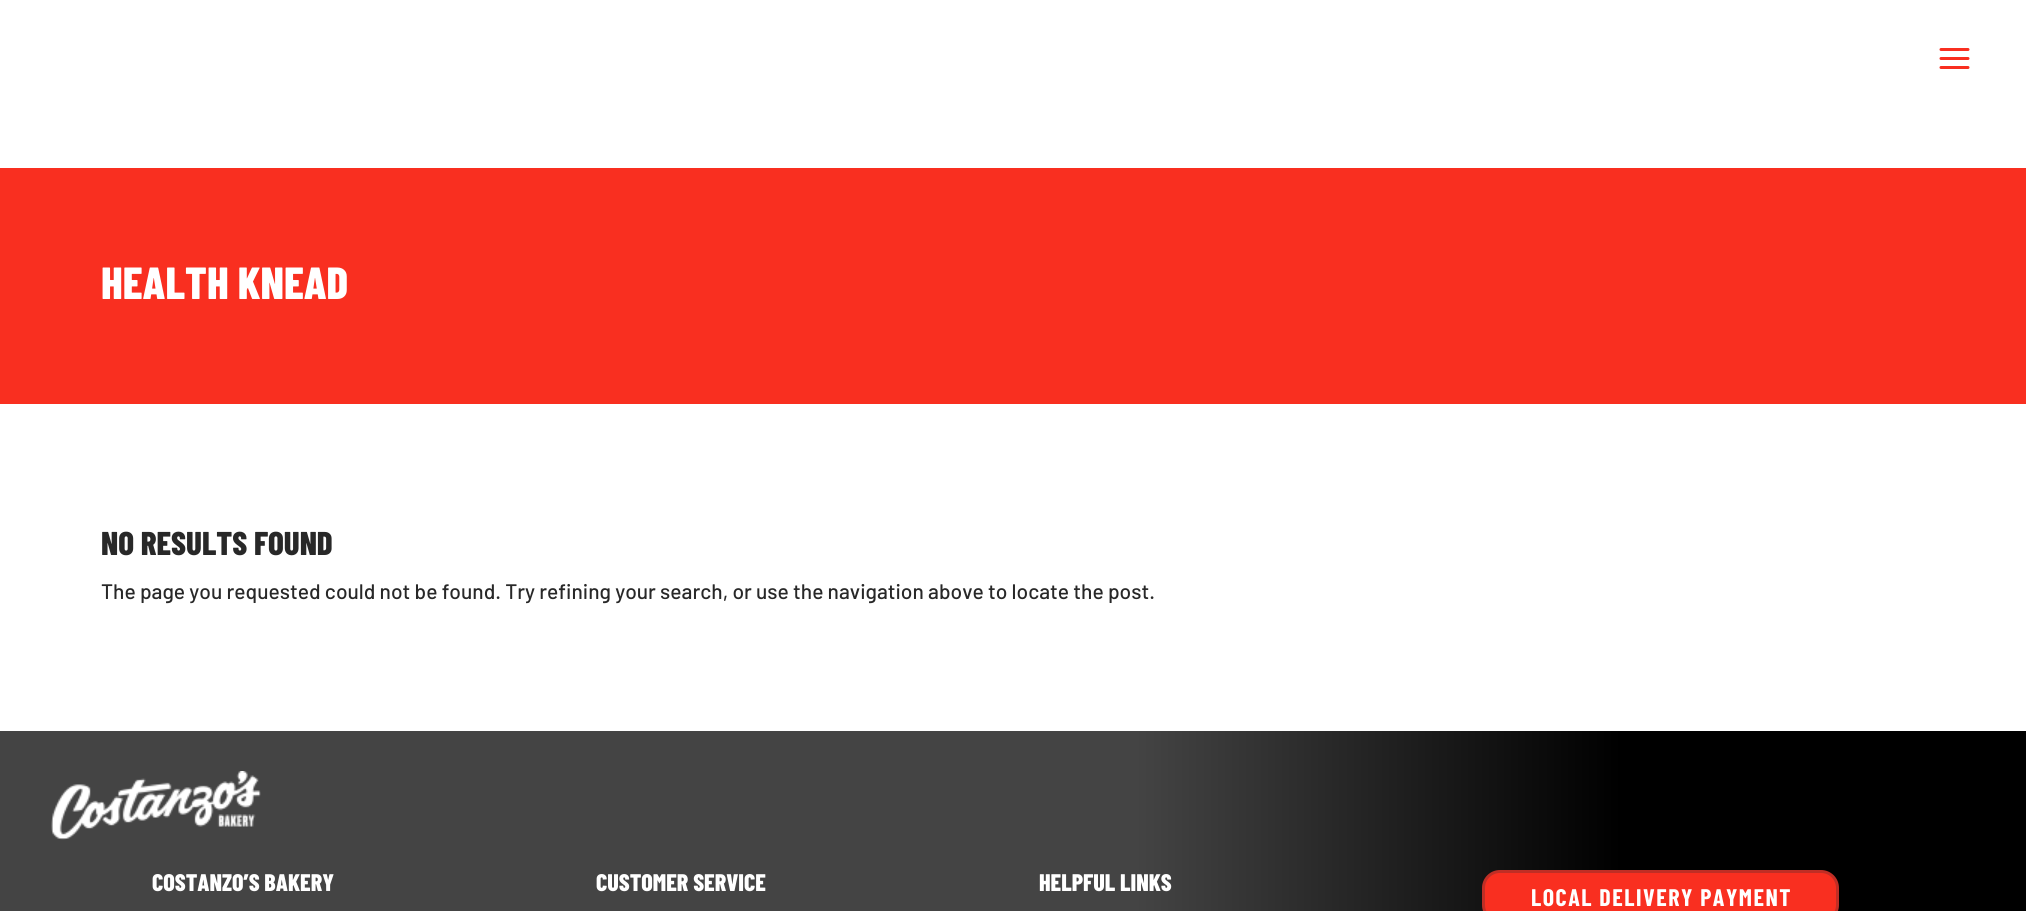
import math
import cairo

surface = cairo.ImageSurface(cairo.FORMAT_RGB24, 2026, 911)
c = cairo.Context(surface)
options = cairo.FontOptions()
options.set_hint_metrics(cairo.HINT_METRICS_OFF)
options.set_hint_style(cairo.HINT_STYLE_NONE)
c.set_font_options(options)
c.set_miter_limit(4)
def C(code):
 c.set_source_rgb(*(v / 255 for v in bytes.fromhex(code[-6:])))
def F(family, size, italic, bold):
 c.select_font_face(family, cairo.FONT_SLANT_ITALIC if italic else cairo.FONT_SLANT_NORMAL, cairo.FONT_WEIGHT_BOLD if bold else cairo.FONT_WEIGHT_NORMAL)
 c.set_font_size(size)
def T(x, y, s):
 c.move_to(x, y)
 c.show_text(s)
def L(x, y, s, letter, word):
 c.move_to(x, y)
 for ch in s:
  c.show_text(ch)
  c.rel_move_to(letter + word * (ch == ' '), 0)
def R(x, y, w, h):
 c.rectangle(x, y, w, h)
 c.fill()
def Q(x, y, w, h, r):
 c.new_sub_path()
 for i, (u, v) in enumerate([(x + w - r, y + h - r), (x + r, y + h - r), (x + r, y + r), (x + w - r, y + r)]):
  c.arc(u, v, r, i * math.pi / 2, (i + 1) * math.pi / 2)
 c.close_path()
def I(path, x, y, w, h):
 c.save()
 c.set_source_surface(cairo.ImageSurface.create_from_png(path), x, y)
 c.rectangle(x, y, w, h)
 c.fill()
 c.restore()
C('ffffff')
c.paint()
I('1.png',1939,48,31,21)
C('f92f20')
R(0,168,2026,236)
F('Barlow Condensed ExtraBold',45,0,0)
C('ffffff')
T(101,299,'HEALTH KNEAD')
F('Barlow Condensed ExtraBold',33,0,0)
C('282828')
T(101,555,'NO RESULTS FOUND')
F('Barlow Medium',21,0,0)
T(101,599,'The page you requested could not be found. Try refining your search, or use the navigation above to locate the post.')
gradient = cairo.LinearGradient(0,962,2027,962)
gradient.add_color_stop_rgba(.56,0.267,0.267,0.267,1)
gradient.add_color_stop_rgba(.8,0,0,0,1)
c.set_source(gradient)
R(0,731,2026,180)
I('2.png',51,771,210,69)
F('Barlow Condensed ExtraBold',24,0,0)
C('ffffff')
T(152,891,'COSTANZO’S BAKERY')
T(596,891,'CUSTOMER SERVICE')
T(1039,891,'HELPFUL LINKS')
C('f92f20')
Q(1483.5,871.5,354,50,16.5)
c.fill_preserve()
C('c02e25')
c.set_line_width(3)
c.stroke()
F('Barlow Condensed',24,0,1)
C('ffffff')
L(1531,906,'LOCAL DELIVERY PAYMENT',1.5,0)
surface.write_to_png('o.png')
